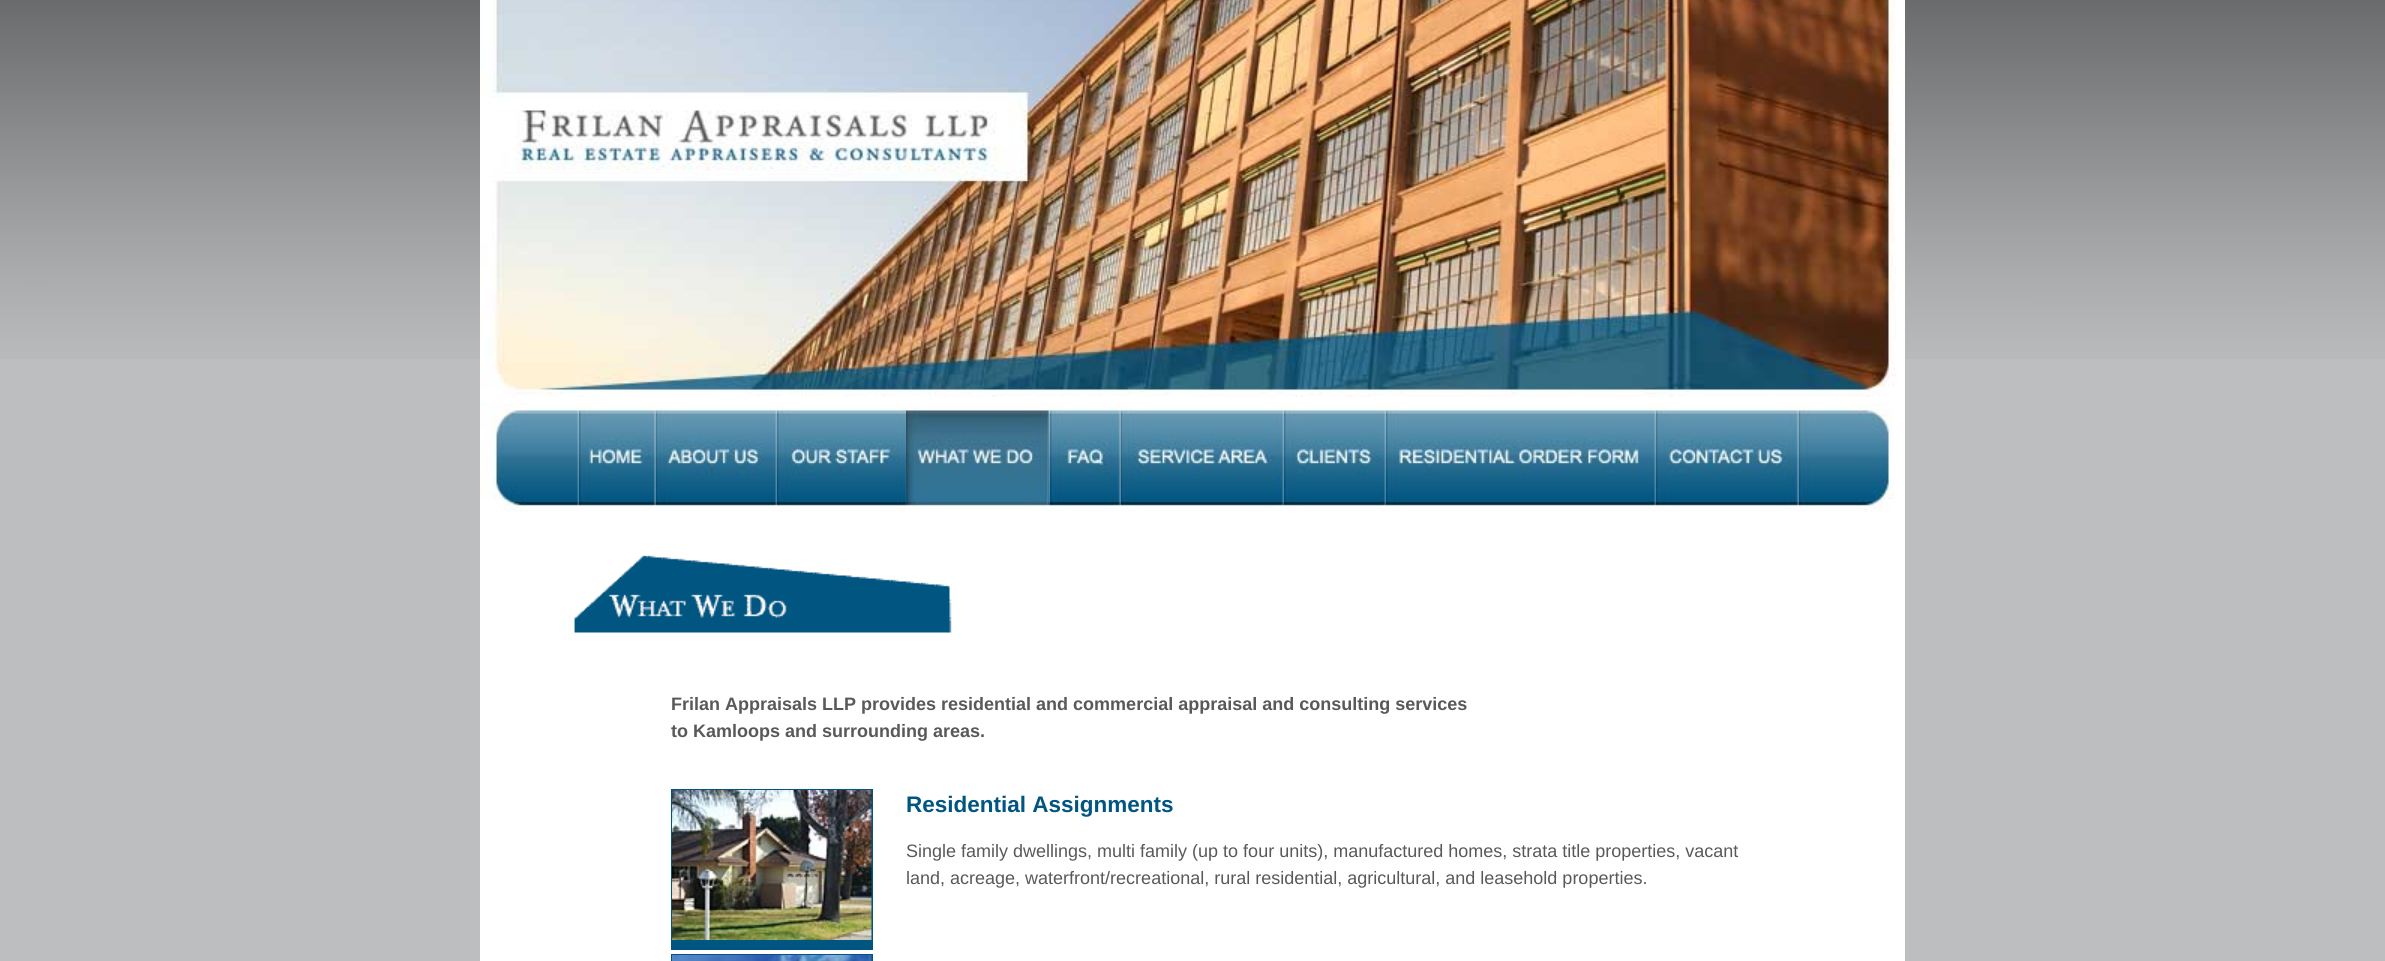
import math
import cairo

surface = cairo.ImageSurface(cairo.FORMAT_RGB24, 2385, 961)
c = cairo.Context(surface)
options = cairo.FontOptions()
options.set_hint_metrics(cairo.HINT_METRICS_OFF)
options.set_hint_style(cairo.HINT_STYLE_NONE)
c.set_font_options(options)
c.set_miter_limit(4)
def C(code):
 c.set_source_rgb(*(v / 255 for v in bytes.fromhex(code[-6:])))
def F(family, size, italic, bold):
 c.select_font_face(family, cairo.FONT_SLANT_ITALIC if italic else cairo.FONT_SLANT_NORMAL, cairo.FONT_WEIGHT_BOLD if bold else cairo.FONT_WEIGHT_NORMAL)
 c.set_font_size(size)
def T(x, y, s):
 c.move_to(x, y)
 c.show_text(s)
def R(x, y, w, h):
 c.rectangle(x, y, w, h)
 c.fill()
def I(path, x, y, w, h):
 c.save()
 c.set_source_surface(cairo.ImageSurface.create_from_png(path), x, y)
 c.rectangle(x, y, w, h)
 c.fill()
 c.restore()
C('bcbec0')
c.paint()
I('1.png',0,0,2385,359)
C('ffffff')
R(480,0,1425,961)
I('2.png',480,0,1416,397)
I('3.png',480,403,99,110)
I('7.png',777,403,131,109)
I('8.png',1048,403,2,108)
I('4.png',906,403,143,108)
I('5.png',579,403,77,105)
I('6.png',655,405,122,103)
I('9.png',1050,403,71,108)
I('10.png',1120,405,164,106)
I('11.png',1284,403,102,109)
I('12.png',1386,403,270,109)
I('13.png',1656,403,143,108)
I('14.png',1798,403,97,109)
I('15.png',574,555,378,78)
F('Liberation Sans',18,0,1)
C('58595b')
T(671,710,'Frilan Appraisals LLP provides residential and commercial appraisal and consulting services')
T(671,737,'to Kamloops and surrounding areas.')
C('005581')
R(671,789,202,161)
I('16.png',672,790,200,150)
F('Liberation Sans',22.5,0,1)
T(906,812,'Residential Assignments')
F('Liberation Sans',18,0,0)
C('58595b')
T(906,857,'Single family dwellings, multi family (up to four units), manufactured homes, strata title properties, vacant')
T(906,884,'land, acreage, waterfront/recreational, rural residential, agricultural, and leasehold properties.')
C('005581')
R(671,954,202,7)
I('17.png',672,955,200,6)
surface.write_to_png('o.png')
